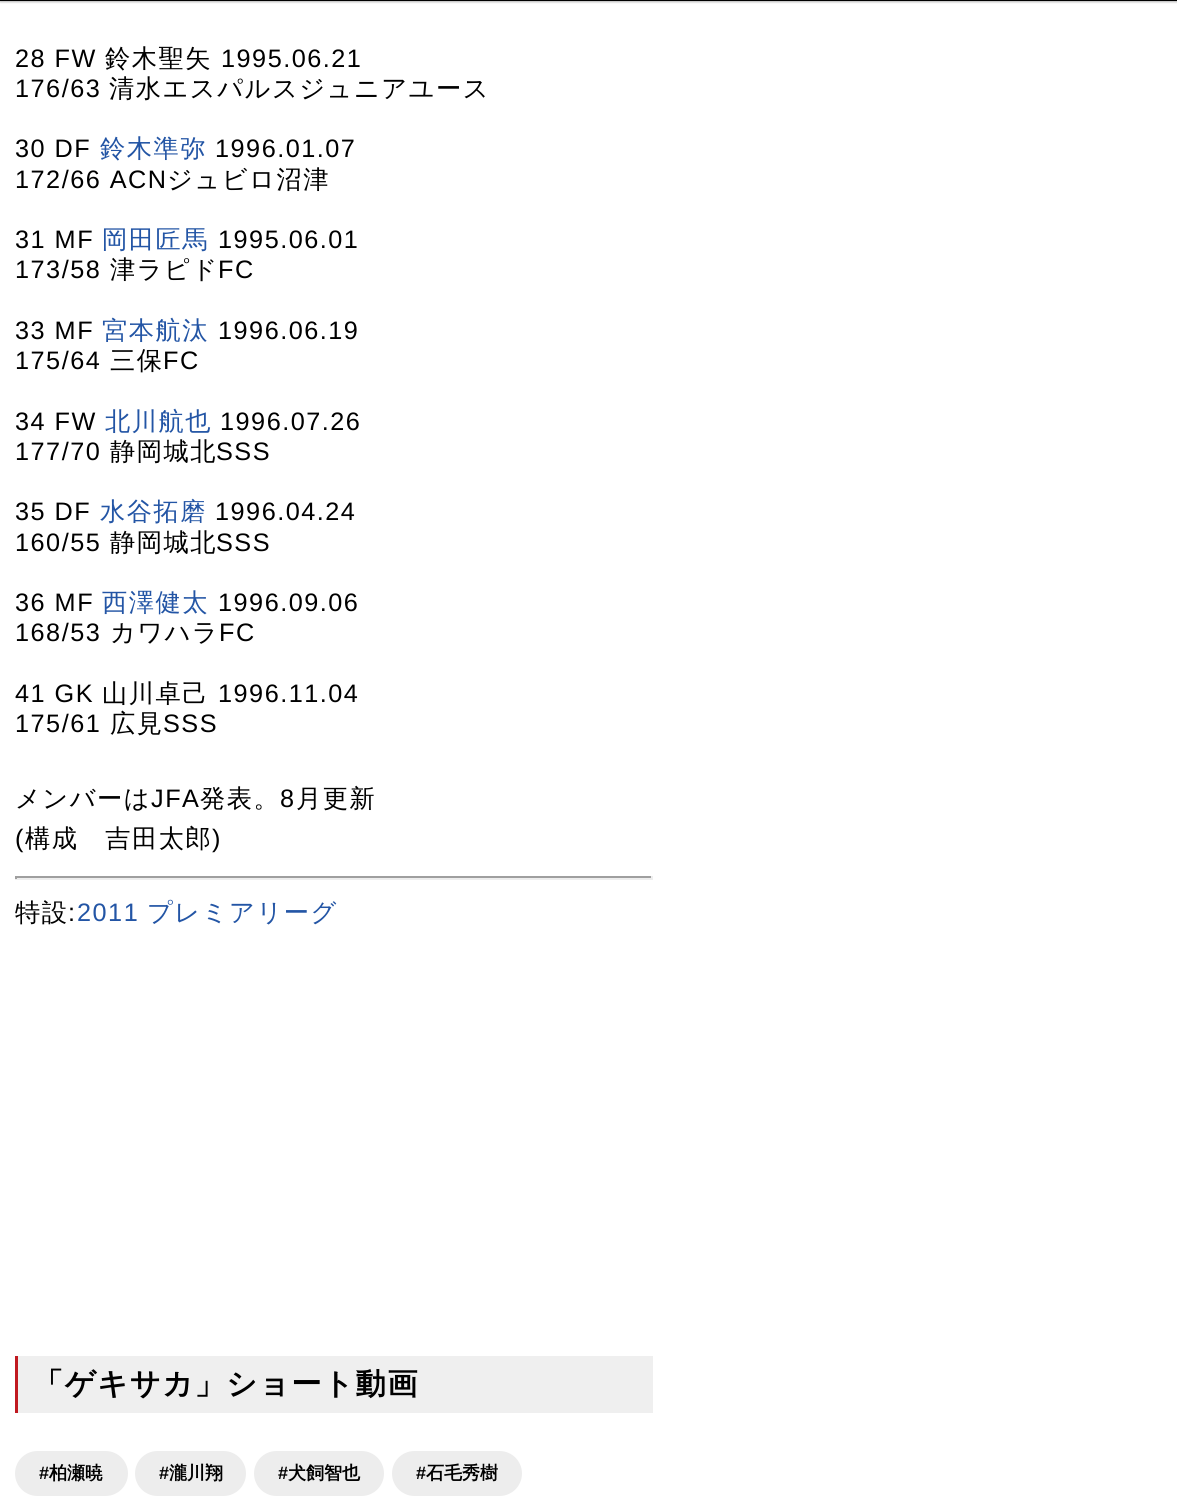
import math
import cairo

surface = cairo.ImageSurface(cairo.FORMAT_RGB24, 1177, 1498)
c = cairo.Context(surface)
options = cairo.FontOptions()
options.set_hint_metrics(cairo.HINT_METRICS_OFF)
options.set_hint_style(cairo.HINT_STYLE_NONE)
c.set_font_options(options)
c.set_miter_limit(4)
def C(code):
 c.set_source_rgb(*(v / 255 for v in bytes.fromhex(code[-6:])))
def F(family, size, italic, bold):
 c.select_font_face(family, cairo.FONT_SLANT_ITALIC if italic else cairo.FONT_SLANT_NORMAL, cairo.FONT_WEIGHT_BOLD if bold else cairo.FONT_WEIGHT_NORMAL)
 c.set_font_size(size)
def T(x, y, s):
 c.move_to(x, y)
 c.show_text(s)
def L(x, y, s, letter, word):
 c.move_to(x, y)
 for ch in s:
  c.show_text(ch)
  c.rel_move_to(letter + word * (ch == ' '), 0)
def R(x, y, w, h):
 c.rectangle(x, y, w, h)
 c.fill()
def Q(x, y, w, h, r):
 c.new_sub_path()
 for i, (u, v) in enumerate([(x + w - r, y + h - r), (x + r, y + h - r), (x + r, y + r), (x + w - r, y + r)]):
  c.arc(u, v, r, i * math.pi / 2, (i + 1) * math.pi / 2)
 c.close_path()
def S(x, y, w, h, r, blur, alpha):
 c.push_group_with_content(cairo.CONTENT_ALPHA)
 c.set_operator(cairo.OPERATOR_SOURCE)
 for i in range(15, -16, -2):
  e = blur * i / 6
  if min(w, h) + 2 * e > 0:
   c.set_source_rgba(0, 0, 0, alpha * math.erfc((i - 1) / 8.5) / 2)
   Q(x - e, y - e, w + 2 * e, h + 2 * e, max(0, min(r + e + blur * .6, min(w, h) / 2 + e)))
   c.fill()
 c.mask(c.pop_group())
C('ffffff')
c.paint()
C('000000')
S(0,-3,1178,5,0,1,.3)
C('000000')
R(0,0,1177,1)
F('Liberation Sans',25.25,0,0)
L(15,67,'28 FW',1.5,0)
F('WenQuanYi Zen Hei Medium',25.25,0,0)
L(105,67,'鈴木聖矢',1.5,0)
F('Liberation Sans',25.25,0,0)
L(221,67,'1995.06.21',1.5,0)
L(15,97,'176/63',1.5,0)
F('WenQuanYi Zen Hei Medium',25.25,0,0)
L(109,97,'清水エスパルスジュニアユース',1.5,0)
F('Liberation Sans',25.25,0,0)
L(15,157,'30 DF',1.5,0)
F('WenQuanYi Zen Hei Medium',25.25,0,0)
C('2355a5')
L(100,157,'鈴木準弥',1.5,0)
F('Liberation Sans',25.25,0,0)
C('000000')
L(215,157,'1996.01.07',1.5,0)
L(15,188,'172/66 ACN',1.5,0)
F('WenQuanYi Zen Hei Medium',25.25,0,0)
L(167,188,'ジュビロ沼津',1.5,0)
F('Liberation Sans',25.25,0,0)
L(15,248,'31 MF',1.5,0)
F('WenQuanYi Zen Hei Medium',25.25,0,0)
C('2355a5')
L(102,248,'岡田匠馬',1.5,0)
F('Liberation Sans',25.25,0,0)
C('000000')
L(218,248,'1995.06.01',1.5,0)
L(15,278,'173/58',1.5,0)
F('WenQuanYi Zen Hei Medium',25.25,0,0)
L(110,278,'津ラピド',1.5,0)
F('Liberation Sans',25.25,0,0)
L(218,278,'FC',1.5,0)
L(15,339,'33 MF',1.5,0)
F('WenQuanYi Zen Hei Medium',25.25,0,0)
C('2355a5')
L(102,339,'宮本航汰',1.5,0)
F('Liberation Sans',25.25,0,0)
C('000000')
L(218,339,'1996.06.19',1.5,0)
L(15,369,'175/64',1.5,0)
F('WenQuanYi Zen Hei Medium',25.25,0,0)
L(110,369,'三保',1.5,0)
F('Liberation Sans',25.25,0,0)
L(163,369,'FC',1.5,0)
L(15,430,'34 FW',1.5,0)
F('WenQuanYi Zen Hei Medium',25.25,0,0)
C('2355a5')
L(105,430,'北川航也',1.5,0)
F('Liberation Sans',25.25,0,0)
C('000000')
L(220,430,'1996.07.26',1.5,0)
L(15,460,'177/70',1.5,0)
F('WenQuanYi Zen Hei Medium',25.25,0,0)
L(110,460,'静岡城北',1.5,0)
F('Liberation Sans',25.25,0,0)
L(216,460,'SSS',1.5,0)
L(15,520,'35 DF',1.5,0)
F('WenQuanYi Zen Hei Medium',25.25,0,0)
C('2355a5')
L(100,520,'水谷拓磨',1.5,0)
F('Liberation Sans',25.25,0,0)
C('000000')
L(215,520,'1996.04.24',1.5,0)
L(15,551,'160/55',1.5,0)
F('WenQuanYi Zen Hei Medium',25.25,0,0)
L(110,551,'静岡城北',1.5,0)
F('Liberation Sans',25.25,0,0)
L(216,551,'SSS',1.5,0)
L(15,611,'36 MF',1.5,0)
F('WenQuanYi Zen Hei Medium',25.25,0,0)
C('2355a5')
L(102,611,'西澤健太',1.5,0)
F('Liberation Sans',25.25,0,0)
C('000000')
L(218,611,'1996.09.06',1.5,0)
L(15,641,'168/53',1.5,0)
F('WenQuanYi Zen Hei Medium',25.25,0,0)
L(110,641,'カワハラ',1.5,0)
F('Liberation Sans',25.25,0,0)
L(219,641,'FC',1.5,0)
L(15,702,'41 GK',1.5,0)
F('WenQuanYi Zen Hei Medium',25.25,0,0)
L(102,702,'山川卓己',1.5,0)
F('Liberation Sans',25.25,0,0)
L(218,702,'1996.11.04',1.5,0)
L(15,732,'175/61',1.5,0)
F('WenQuanYi Zen Hei Medium',25.25,0,0)
L(110,732,'広見',1.5,0)
F('Liberation Sans',25.25,0,0)
L(163,732,'SSS',1.5,0)
F('WenQuanYi Zen Hei Medium',25.25,0,0)
L(15,807,'メンバーは',1.5,0)
F('Liberation Sans',25.25,0,0)
L(151,807,'JFA',1.5,0)
F('WenQuanYi Zen Hei Medium',25.25,0,0)
L(200,807,'発表。',1.5,0)
F('Liberation Sans',25.25,0,0)
L(280,807,'8',1.5,0)
F('WenQuanYi Zen Hei Medium',25.25,0,0)
L(296,807,'月更新',1.5,0)
F('Liberation Sans',25.25,0,0)
L(15,847,'(',1.5,0)
F('WenQuanYi Zen Hei Medium',25.25,0,0)
L(25,847,'構成　吉田太郎',1.5,0)
F('Liberation Sans',25.25,0,0)
L(212,847,')',1.5,0)
C('9f9f9f')
R(15,876,638,2)
C('eeeeee')
R(651,876,2,3)
R(15,878,638,2)
C('9f9f9f')
R(15,876,2,3)
F('WenQuanYi Zen Hei Medium',25.25,0,0)
C('000000')
L(15,921,'特設',1.5,0)
F('Liberation Sans',25.25,0,0)
L(68,921,':',1.5,0)
C('2355a5')
L(77,921,'2011',1.5,0)
F('WenQuanYi Zen Hei Medium',25.25,0,0)
L(147,921,'プレミアリーグ',1.5,0)
C('efefef')
R(18,1356,635,57)
C('c01920')
R(15,1356,3,57)
F('WenQuanYi Zen Hei',30.25,0,1)
C('000000')
L(33,1394,'「ゲキサカ」ショート動画',1.5,0)
C('ededed')
Q(16,1452,111,43,21.5)
c.fill_preserve()
c.stroke()
F('Liberation Sans',18,0,1)
C('000000')
T(39,1479,'#')
F('WenQuanYi Zen Hei',18,0,1)
T(49,1479,'柏瀬暁')
C('ededed')
Q(136,1452,109,43,21.5)
c.fill_preserve()
c.stroke()
F('Liberation Sans',18,0,1)
C('000000')
T(159,1479,'#')
F('WenQuanYi Zen Hei',18,0,1)
T(169,1479,'瀧川翔')
C('ededed')
Q(255,1452,128,43,21.5)
c.fill_preserve()
c.stroke()
F('Liberation Sans',18,0,1)
C('000000')
T(278,1479,'#')
F('WenQuanYi Zen Hei',18,0,1)
T(288,1479,'犬飼智也')
C('ededed')
Q(393,1452,128,43,21.5)
c.fill_preserve()
c.stroke()
F('Liberation Sans',18,0,1)
C('000000')
T(416,1479,'#')
F('WenQuanYi Zen Hei',18,0,1)
T(426,1479,'石毛秀樹')
surface.write_to_png('o.png')
